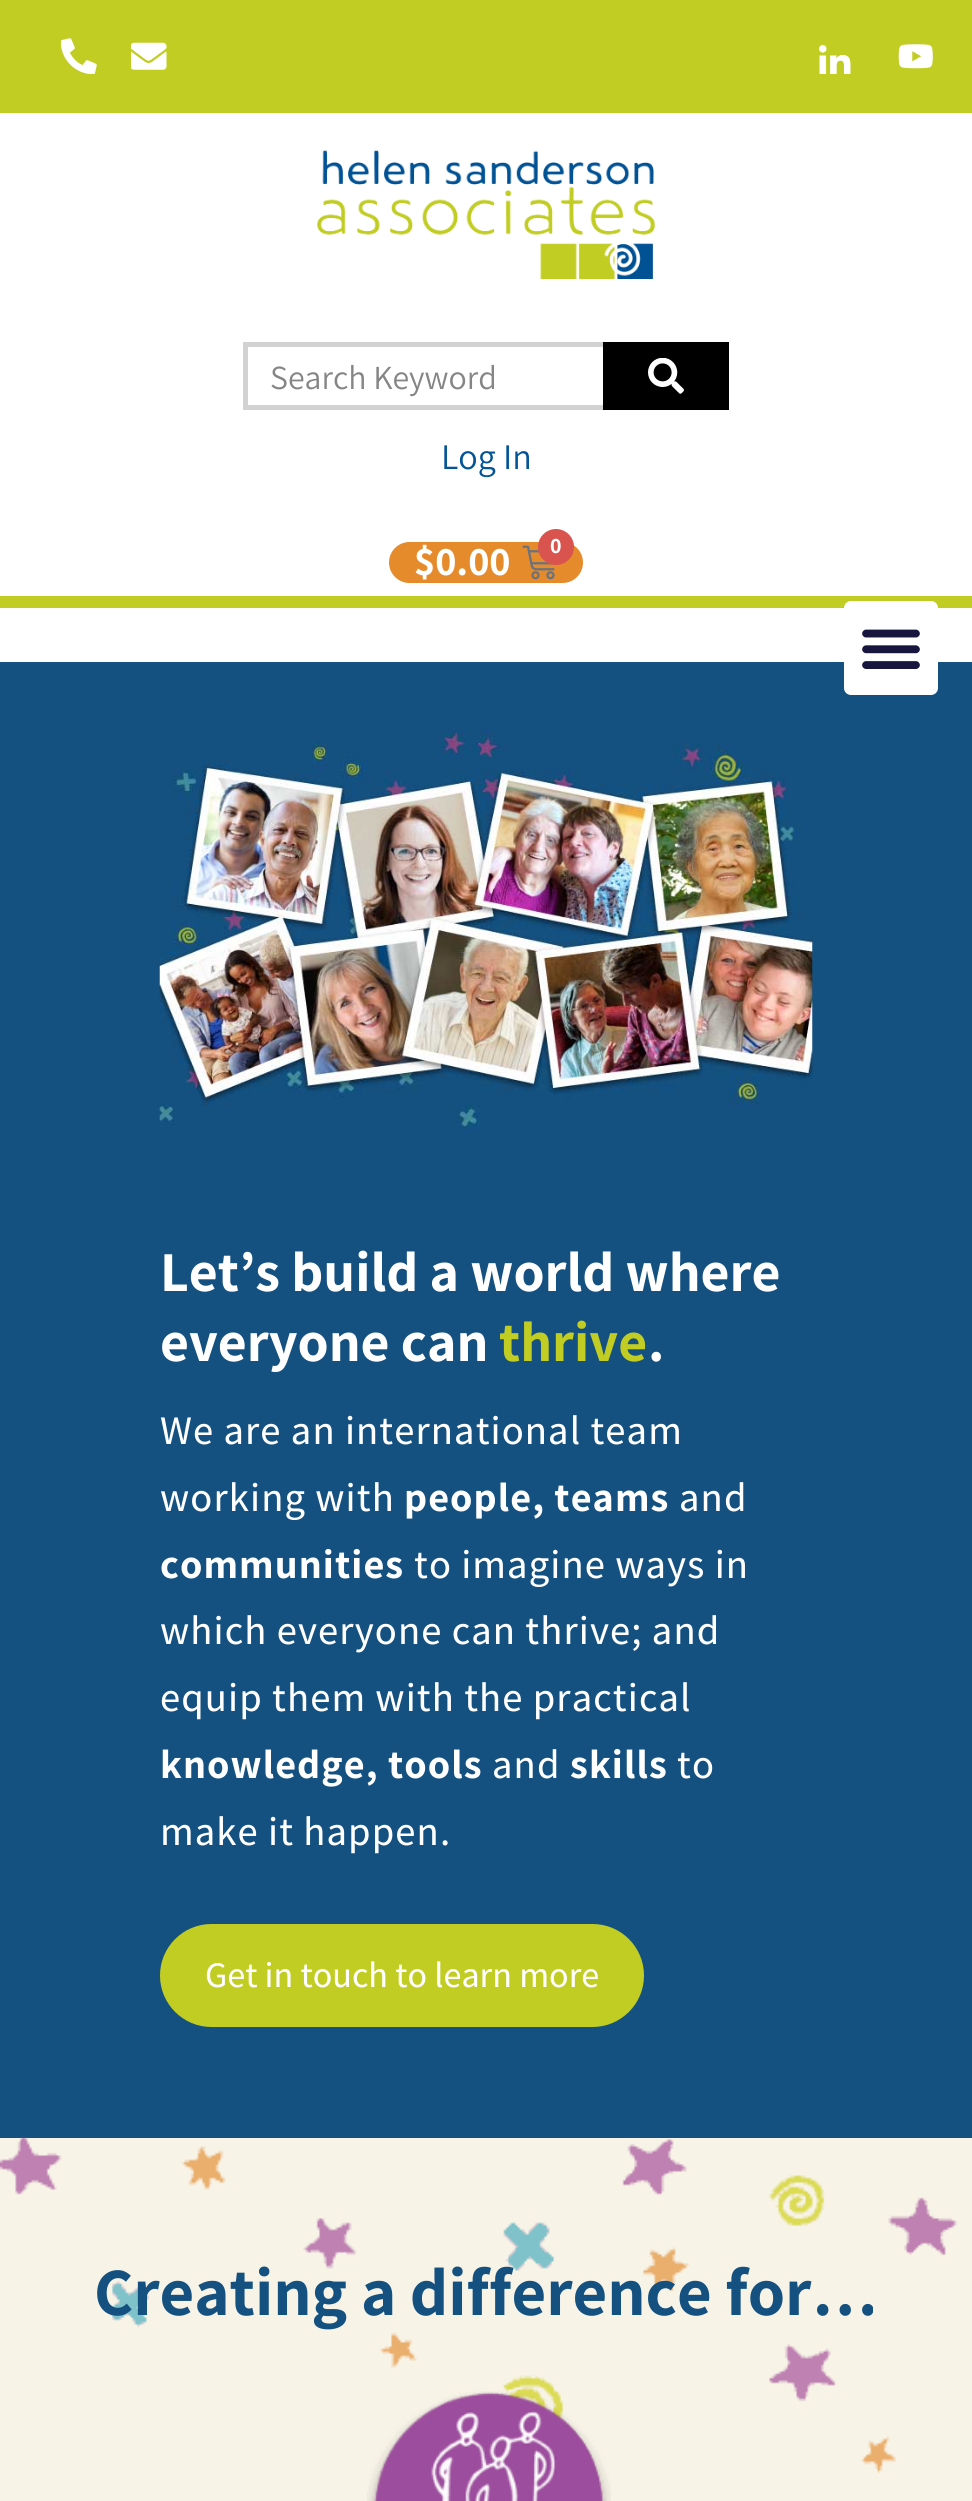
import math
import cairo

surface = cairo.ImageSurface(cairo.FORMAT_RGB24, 972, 2501)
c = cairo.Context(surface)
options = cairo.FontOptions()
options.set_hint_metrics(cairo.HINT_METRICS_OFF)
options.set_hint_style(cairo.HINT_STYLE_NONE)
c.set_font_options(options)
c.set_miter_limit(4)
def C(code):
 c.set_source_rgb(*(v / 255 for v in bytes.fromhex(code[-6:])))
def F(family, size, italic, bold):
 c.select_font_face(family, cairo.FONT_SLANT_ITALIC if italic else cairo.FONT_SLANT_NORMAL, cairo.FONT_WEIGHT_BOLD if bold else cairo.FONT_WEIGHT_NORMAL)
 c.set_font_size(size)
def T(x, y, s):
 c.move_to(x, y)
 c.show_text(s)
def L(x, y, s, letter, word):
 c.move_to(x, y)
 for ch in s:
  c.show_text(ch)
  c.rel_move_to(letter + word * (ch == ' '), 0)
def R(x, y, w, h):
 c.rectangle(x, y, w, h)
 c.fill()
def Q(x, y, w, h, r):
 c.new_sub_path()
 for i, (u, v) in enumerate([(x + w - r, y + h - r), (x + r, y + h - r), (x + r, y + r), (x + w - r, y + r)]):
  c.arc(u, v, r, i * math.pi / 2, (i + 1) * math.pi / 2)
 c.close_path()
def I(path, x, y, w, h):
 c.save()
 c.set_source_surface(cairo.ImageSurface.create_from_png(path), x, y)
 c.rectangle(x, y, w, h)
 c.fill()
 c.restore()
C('ffffff')
c.paint()
C('c1cd23')
R(0,0,972,113)
I('1.png',61,38,36,36)
I('2.png',131,42,36,28)
I('3.png',819,45,32,29)
I('4.png',898,44,35,25)
R(0,596,972,12)
I('5.png',317,150,338,129)
C('d2d2d2')
R(243,342,365,5)
R(243,405,365,5)
R(243,342,5,68)
F('Assistant',33.75,0,0)
C('858585')
T(270,389,'Search Keyword')
C('000000')
R(603,342,126,68)
I('6.png',648,358,36,36)
F('Assistant',36,0,0)
C('035496')
T(441,469,'Log In')
C('e68b2b')
Q(388,541,196,43,21.5)
c.fill_preserve()
C('ffffff')
c.stroke()
F('Assistant',40.5,0,1)
T(414,575,'$0.00')
I('7.png',522,545,33,35)
C('d9534f')
c.arc(556,547,18,0,2 * math.pi)
c.fill()
F('Assistant',22,0,1)
C('ffffff')
T(550,553,'0')
C('145180')
R(0,662,972,1476)
C('ffffff')
Q(844,601,94,94,7)
c.fill()
I('8.png',862,629,58,40)
I('9.png',159,729,654,404)
F('Assistant',56.25,0,1)
T(160,1291,'Let’s build a world where')
T(160,1361,'everyone can')
C('c1cd23')
T(499,1361,'thrive')
C('ffffff')
T(648,1361,'.')
F('Assistant Medium',40.5,0,0)
L(160,1444,'We are an international team',1.1,0)
L(160,1511,'working with',1.1,0)
F('Assistant',40.5,0,1)
L(404,1511,'people, teams',1.1,0)
F('Assistant Medium',40.5,0,0)
L(679,1511,'and',1.1,0)
F('Assistant',40.5,0,1)
L(160,1578,'communities',1.1,0)
F('Assistant Medium',40.5,0,0)
L(414,1578,'to imagine ways in',1.1,0)
L(160,1644,'which everyone can thrive; and',1.1,0)
L(160,1711,'equip them with the practical',1.1,0)
F('Assistant',40.5,0,1)
L(160,1778,'knowledge, tools',1.1,0)
F('Assistant Medium',40.5,0,0)
L(492,1778,'and',1.1,0)
F('Assistant',40.5,0,1)
L(570,1778,'skills',1.1,0)
F('Assistant Medium',40.5,0,0)
L(677,1778,'to',1.1,0)
L(160,1845,'make it happen.',1.1,0)
C('c1cd23')
Q(160,1924,484,103,51.5)
c.fill()
F('Assistant Medium',36,0,0)
C('ffffff')
T(205,1987,'Get in touch to learn more')
C('f7f3e7')
R(0,2138,972,363)
I('10.png',0,2137,957,337)
F('Assistant',67.5,0,1)
C('155180')
T(94,2315,'Creating a difference for…')
I('11.png',367,2391,244,110)
surface.write_to_png('o.png')
